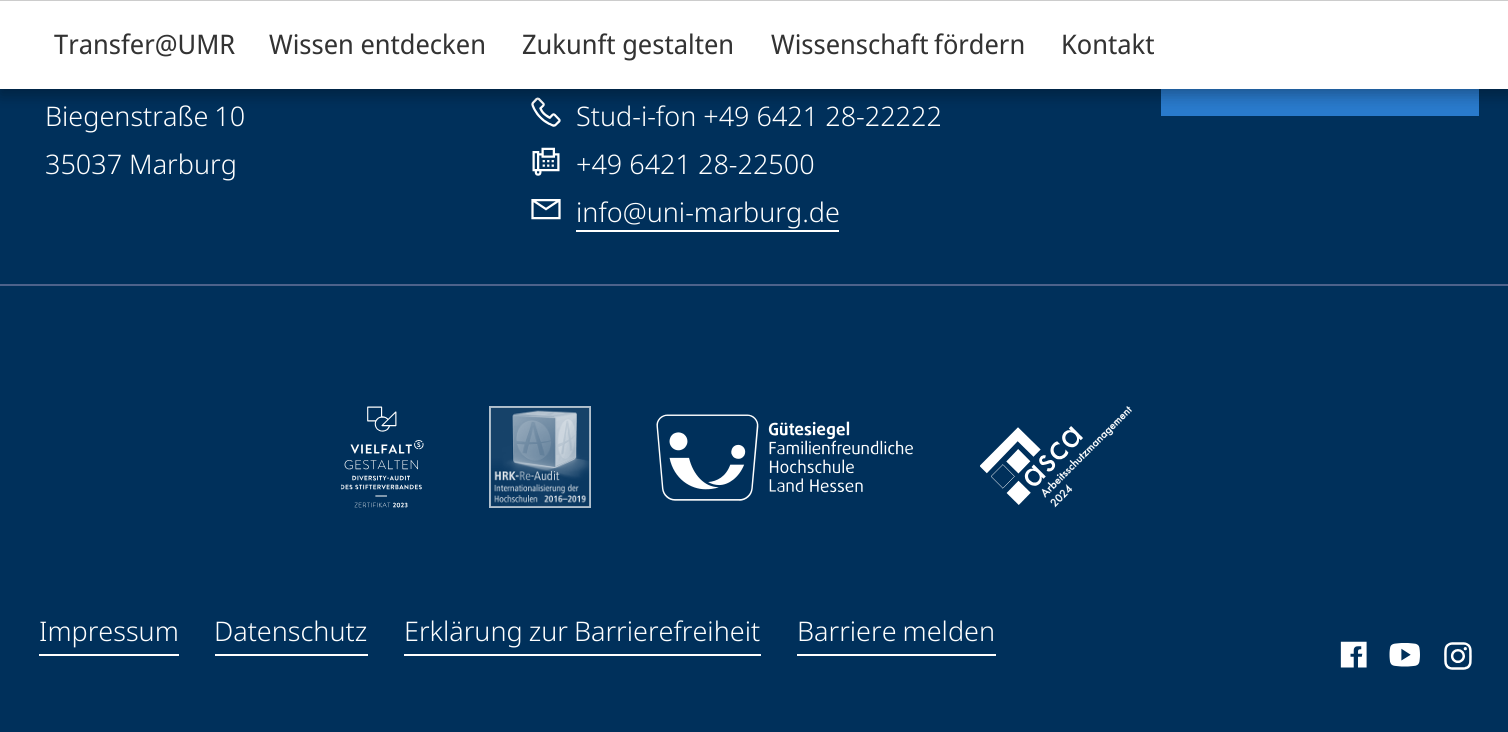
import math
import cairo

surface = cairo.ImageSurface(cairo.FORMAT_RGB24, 1508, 732)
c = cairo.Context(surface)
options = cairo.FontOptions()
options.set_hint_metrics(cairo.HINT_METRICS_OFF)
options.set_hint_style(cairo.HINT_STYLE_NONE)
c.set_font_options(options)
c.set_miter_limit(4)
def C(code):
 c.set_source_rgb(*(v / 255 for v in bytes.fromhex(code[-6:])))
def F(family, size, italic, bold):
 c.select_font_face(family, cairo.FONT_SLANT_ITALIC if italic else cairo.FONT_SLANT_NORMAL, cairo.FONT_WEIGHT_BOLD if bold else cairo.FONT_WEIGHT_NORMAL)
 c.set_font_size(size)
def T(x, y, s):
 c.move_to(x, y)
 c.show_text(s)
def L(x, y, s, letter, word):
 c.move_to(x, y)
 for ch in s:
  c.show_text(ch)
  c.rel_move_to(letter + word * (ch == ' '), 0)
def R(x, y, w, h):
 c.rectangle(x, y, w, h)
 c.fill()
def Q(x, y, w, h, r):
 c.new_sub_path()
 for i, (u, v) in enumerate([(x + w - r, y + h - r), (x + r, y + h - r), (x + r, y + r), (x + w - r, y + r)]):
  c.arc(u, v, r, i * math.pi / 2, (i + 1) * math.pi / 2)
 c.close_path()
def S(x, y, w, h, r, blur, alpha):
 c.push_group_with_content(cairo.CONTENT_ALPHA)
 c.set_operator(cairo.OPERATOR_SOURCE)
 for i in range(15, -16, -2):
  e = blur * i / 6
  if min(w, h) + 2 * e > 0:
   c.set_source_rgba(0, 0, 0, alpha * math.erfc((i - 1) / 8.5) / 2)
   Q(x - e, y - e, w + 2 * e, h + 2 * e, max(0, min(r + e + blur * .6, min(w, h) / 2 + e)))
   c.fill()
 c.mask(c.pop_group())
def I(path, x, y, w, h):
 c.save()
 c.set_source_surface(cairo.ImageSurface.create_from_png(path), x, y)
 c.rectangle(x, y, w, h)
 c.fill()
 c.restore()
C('00305b')
c.paint()
I('1.png',531,97,30,30)
C('297acc')
R(1161,89,318,27)
C('000000')
S(0,5,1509,90,0,7.5,.3)
C('ffffff')
R(0,1,1508,88)
C('cccccc')
R(0,0,1508,1)
F('Noto Sans Display',27,0,0)
C('333333')
T(54,54,'Transfer@UMR')
T(269,54,'Wissen entdecken')
T(522,54,'Zukunft gestalten')
L(771,54,'Wissenschaft fördern',0,-1)
T(1061,54,'Kontakt')
C('4d628b')
R(0,284,1508,2)
F('Noto Sans Light',27,0,0)
C('ffffff')
L(45,126,'Biegenstraße 10',0,-1)
T(45,174,'35037 Marburg')
T(576,126,'Stud-i-fon +49 6421 28-22222')
I('2.png',532,147,28,29)
T(576,174,'+49 6421 28-22500')
I('3.png',531,199,30,21)
T(576,222,'info@uni-marburg.de')
R(576,230,263,2)
I('4.png',341,406,83,102)
I('5.png',489,406,102,102)
I('6.png',656,414,257,87)
I('7.png',980,406,152,102)
R(39,654,140,2)
T(39,641,'Impressum')
R(215,654,153,2)
T(214,641,'Datenschutz')
R(404,654,357,2)
L(404,641,'Erklärung zur Barrierefreiheit',0,-1)
R(797,654,199,2)
L(797,641,'Barriere melden',0,-1)
I('8.png',1340,641,27,27)
I('9.png',1389,643,31,24)
I('10.png',1444,642,28,28)
surface.write_to_png('o.png')
